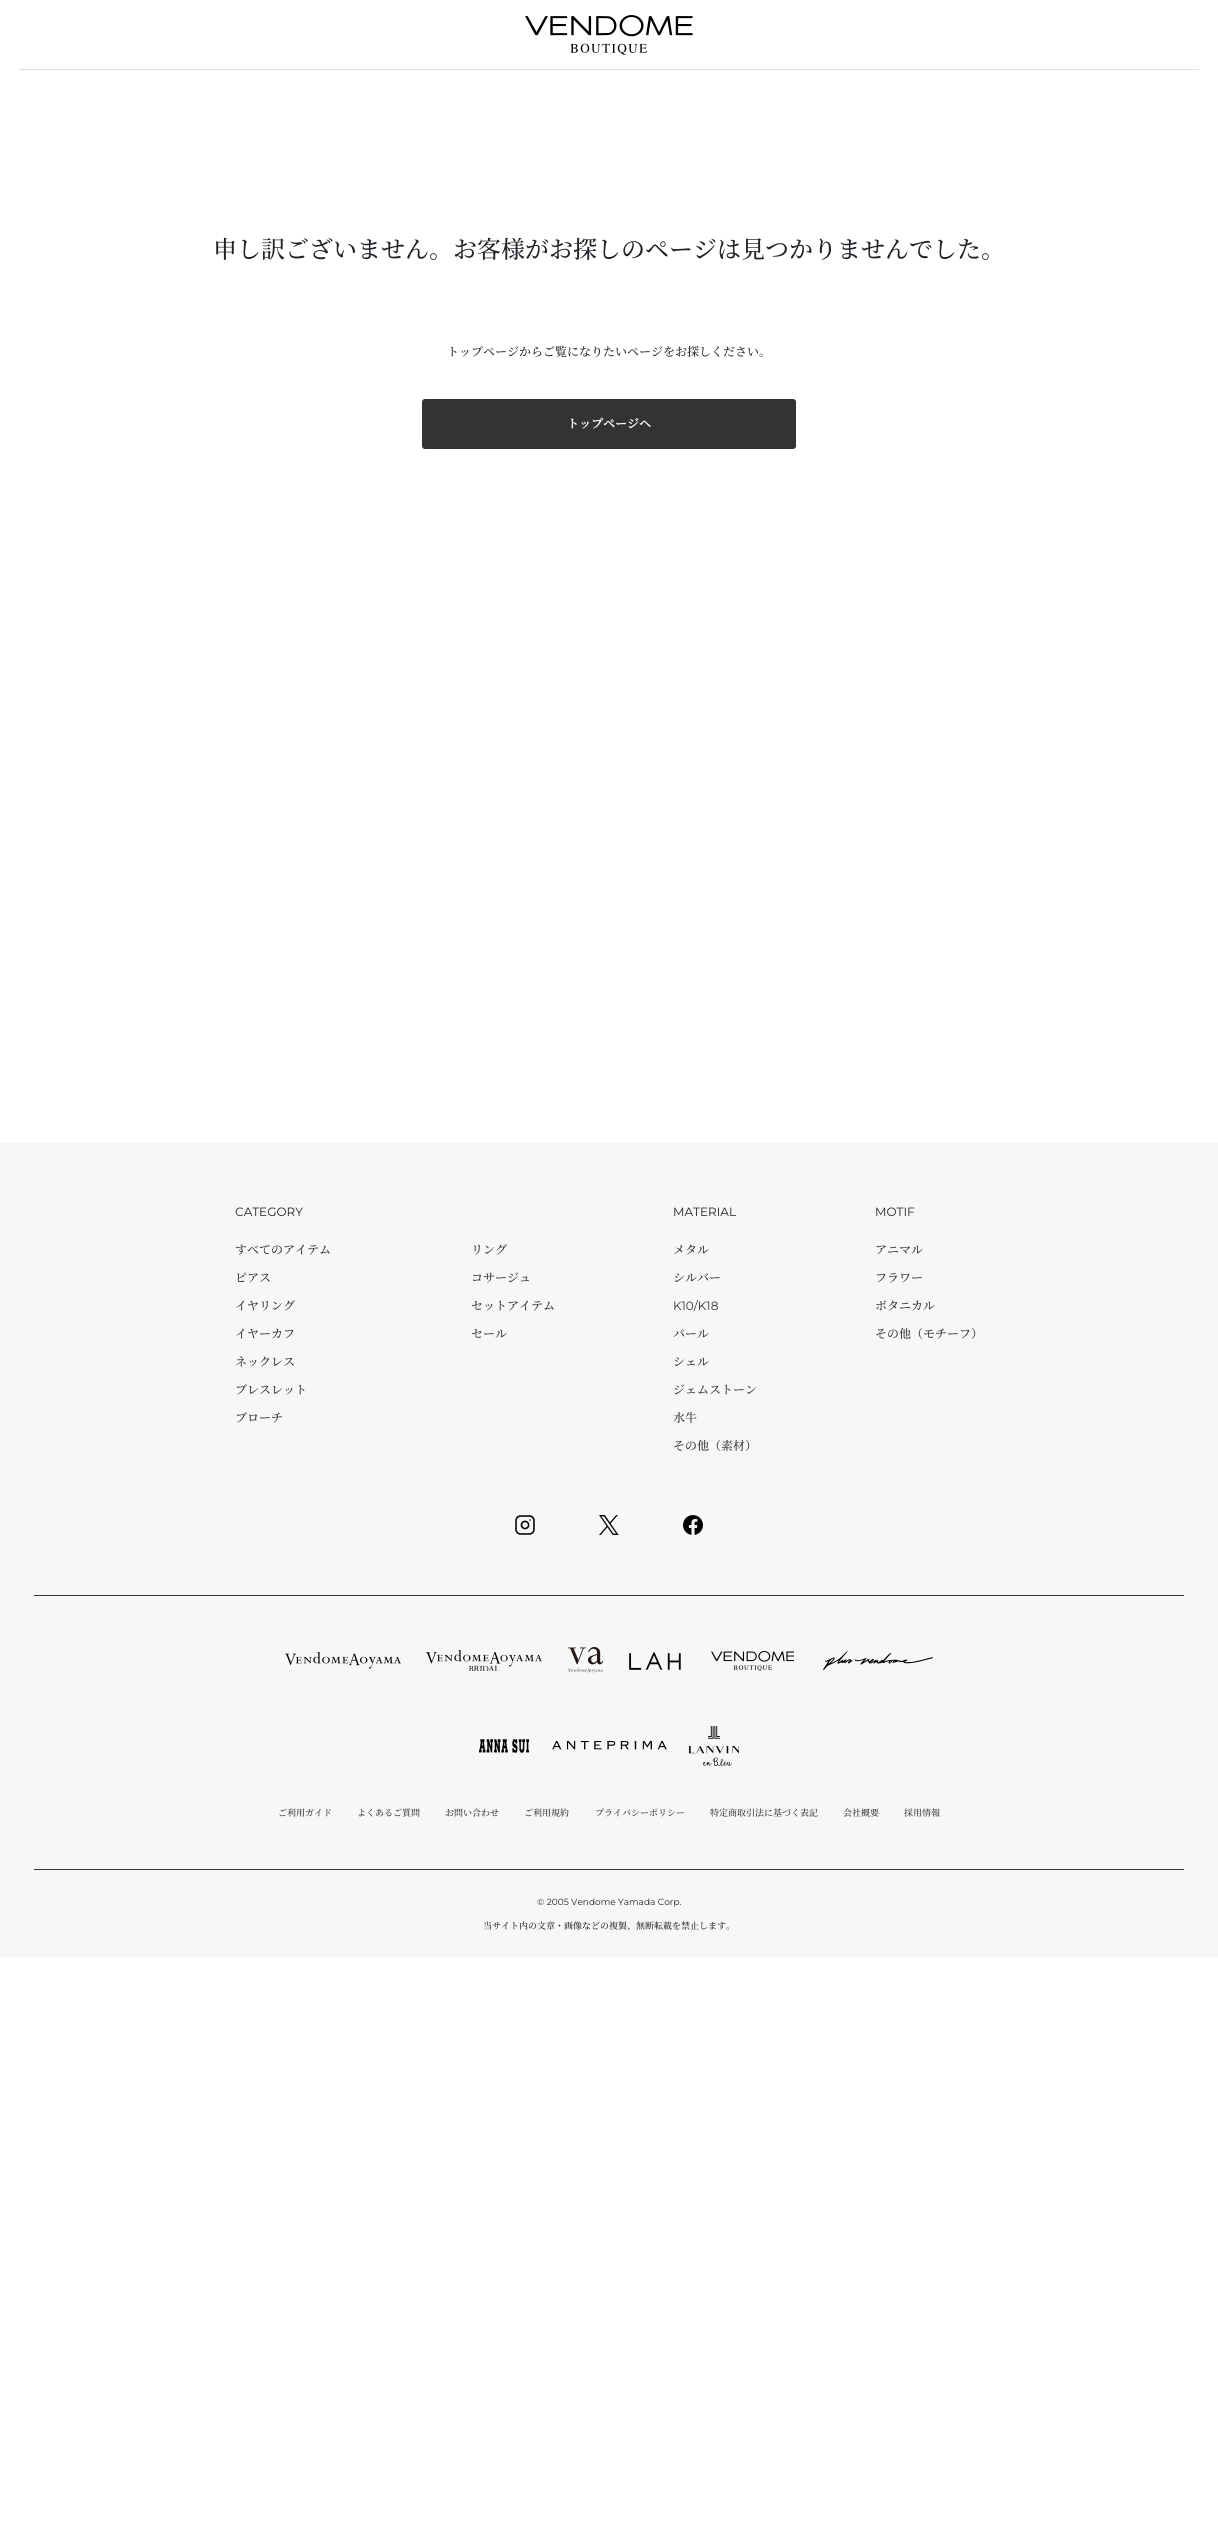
import math
import cairo

surface = cairo.ImageSurface(cairo.FORMAT_RGB24, 1218, 2533)
c = cairo.Context(surface)
options = cairo.FontOptions()
options.set_hint_metrics(cairo.HINT_METRICS_OFF)
options.set_hint_style(cairo.HINT_STYLE_NONE)
c.set_font_options(options)
c.set_miter_limit(4)
def C(code):
 c.set_source_rgb(*(v / 255 for v in bytes.fromhex(code[-6:])))
def F(family, size, italic, bold):
 c.select_font_face(family, cairo.FONT_SLANT_ITALIC if italic else cairo.FONT_SLANT_NORMAL, cairo.FONT_WEIGHT_BOLD if bold else cairo.FONT_WEIGHT_NORMAL)
 c.set_font_size(size)
def T(x, y, s):
 c.move_to(x, y)
 c.show_text(s)
def R(x, y, w, h):
 c.rectangle(x, y, w, h)
 c.fill()
def Q(x, y, w, h, r):
 c.new_sub_path()
 for i, (u, v) in enumerate([(x + w - r, y + h - r), (x + r, y + h - r), (x + r, y + r), (x + w - r, y + r)]):
  c.arc(u, v, r, i * math.pi / 2, (i + 1) * math.pi / 2)
 c.close_path()
def I(path, x, y, w, h):
 c.save()
 c.set_source_surface(cairo.ImageSurface.create_from_png(path), x, y)
 c.rectangle(x, y, w, h)
 c.fill()
 c.restore()
C('ffffff')
c.paint()
C('dddddd')
R(19,69,1180,1)
I('1.png',525,15,168,40)
F('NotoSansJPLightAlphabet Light',24,0,0)
C('212529')
T(213,258,'申し訳ございません。お客様がお探しのページは見つかりませんでした。')
F('NotoSansJPLightAlphabet Light',12,0,0)
T(447,356,'トップページからご覧になりたいページをお探しください。')
C('333333')
Q(422.5,399.5,373,49,2.5)
c.fill_preserve()
c.set_line_width(1)
c.stroke()
F('NotoSansJPLightAlphabet',12,0,1)
C('ffffff')
T(567,428,'トップページヘ')
C('f7f7f7')
R(0,1143,1218,814)
F('Montserrat',12,0,0)
C('212529')
T(235,1216,'CATEGORY')
F('NotoSansJPLightAlphabet Light',12,0,0)
C('333333')
T(235,1254,'すべてのアイテム')
T(471,1254,'リング')
T(235,1282,'ピアス')
T(471,1282,'コサージュ')
T(235,1310,'イヤリング')
T(471,1310,'セットアイテム')
T(235,1338,'イヤーカフ')
T(471,1338,'セール')
T(235,1366,'ネックレス')
T(235,1394,'ブレスレット')
T(235,1422,'ブローチ')
F('Montserrat',12,0,0)
C('212529')
T(673,1216,'MATERIAL')
F('NotoSansJPLightAlphabet Light',12,0,0)
C('333333')
T(673,1254,'メタル')
T(673,1282,'シルバー')
F('Montserrat',12,0,0)
T(673,1310,'K10/K18')
F('NotoSansJPLightAlphabet Light',12,0,0)
T(673,1338,'パール')
T(673,1366,'シェル')
T(673,1394,'ジェムストーン')
T(673,1422,'水牛')
T(673,1450,'その他（素材）')
F('Montserrat',12,0,0)
C('212529')
T(875,1216,'MOTIF')
F('NotoSansJPLightAlphabet Light',12,0,0)
C('333333')
T(875,1254,'アニマル')
T(875,1282,'フラワー')
T(875,1310,'ボタニカル')
T(875,1338,'その他（モチーフ）')
I('2.png',515,1515,20,20)
I('3.png',599,1515,20,20)
I('4.png',683,1515,20,20)
C('3c3224')
R(34,1595,1150,1)
I('5.png',285,1652,116,17)
I('6.png',426,1650,116,21)
I('7.png',568,1647,35,27)
I('8.png',629,1652,52,18)
I('9.png',711,1651,83,20)
I('10.png',823,1651,110,19)
I('11.png',479,1739,50,14)
I('12.png',552,1741,115,9)
I('13.png',689,1726,50,40)
R(34,1869,1150,1)
F('NotoSansJPLightAlphabet Light',9,0,0)
C('333333')
T(278,1816,'ご利用ガイド')
T(357,1816,'よくあるご質問')
T(445,1816,'お問い合わせ')
T(524,1816,'ご利用規約')
T(595,1816,'プライバシーポリシー')
T(710,1816,'特定商取引法に基づく表記')
T(843,1816,'会社概要')
T(904,1816,'採用情報')
F('Montserrat',9,0,0)
C('212529')
T(537,1905,'© 2005 Vendome Yamada Corp.')
F('NotoSansJPLightAlphabet Light',9,0,0)
T(483,1929,'当サイト内の文章・画像などの複製、無断転載を禁止します。')
surface.write_to_png('o.png')
